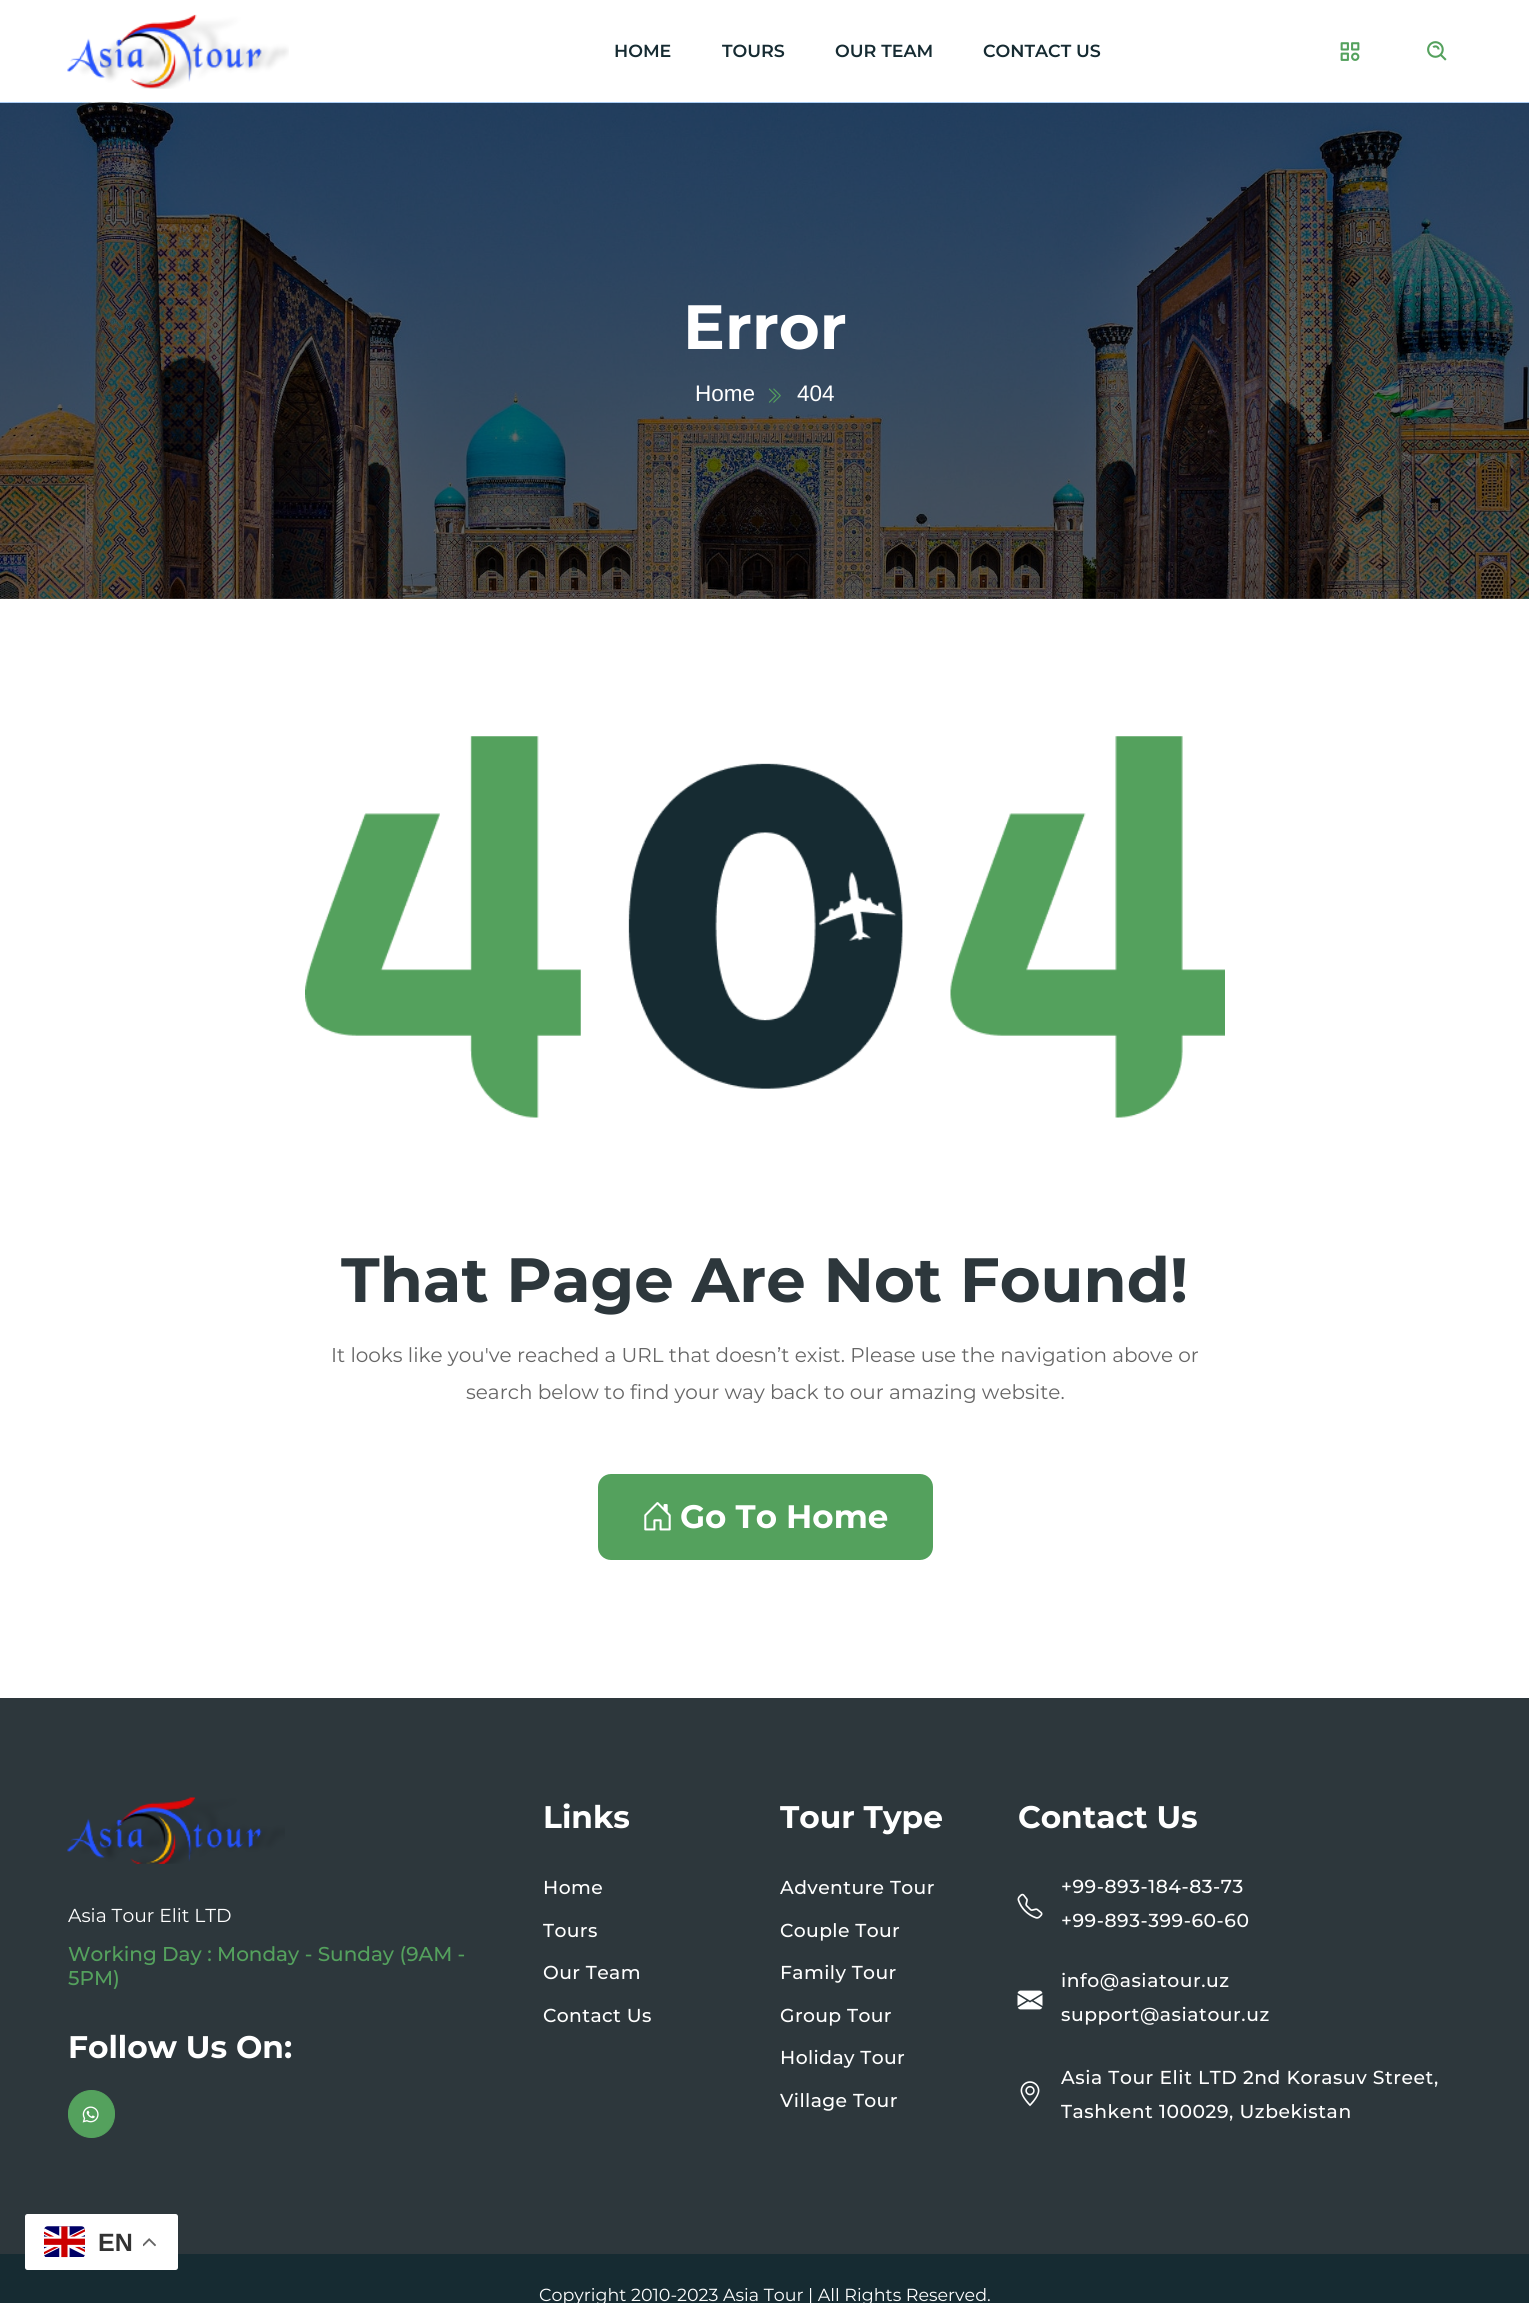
import math
import cairo

surface = cairo.ImageSurface(cairo.FORMAT_RGB24, 1529, 2303)
c = cairo.Context(surface)
options = cairo.FontOptions()
options.set_hint_metrics(cairo.HINT_METRICS_OFF)
options.set_hint_style(cairo.HINT_STYLE_NONE)
c.set_font_options(options)
c.set_miter_limit(4)
def C(code):
 c.set_source_rgb(*(v / 255 for v in bytes.fromhex(code[-6:])))
def F(family, size, italic, bold):
 c.select_font_face(family, cairo.FONT_SLANT_ITALIC if italic else cairo.FONT_SLANT_NORMAL, cairo.FONT_WEIGHT_BOLD if bold else cairo.FONT_WEIGHT_NORMAL)
 c.set_font_size(size)
def T(x, y, s):
 c.move_to(x, y)
 c.show_text(s)
def L(x, y, s, letter, word):
 c.move_to(x, y)
 for ch in s:
  c.show_text(ch)
  c.rel_move_to(letter + word * (ch == ' '), 0)
def R(x, y, w, h):
 c.rectangle(x, y, w, h)
 c.fill()
def Q(x, y, w, h, r):
 c.new_sub_path()
 for i, (u, v) in enumerate([(x + w - r, y + h - r), (x + r, y + h - r), (x + r, y + r), (x + w - r, y + r)]):
  c.arc(u, v, r, i * math.pi / 2, (i + 1) * math.pi / 2)
 c.close_path()
def I(path, x, y, w, h):
 c.save()
 c.set_source_surface(cairo.ImageSurface.create_from_png(path), x, y)
 c.rectangle(x, y, w, h)
 c.fill()
 c.restore()
C('ffffff')
c.paint()
I('1.png',67,14,222,75)
F('Montserrat SemiBold',17.5,0,0)
C('162b32')
T(614,57,'HOME')
T(722,57,'TOURS')
T(835,57,'OUR TEAM')
T(983,57,'CONTACT US')
I('2.png',1340,42,20,19)
I('3.png',1427,41,20,20)
I('4.png',0,102,1529,497)
c.set_source_rgba(0,0,0,0.6)
R(0,103,1529,496)
F('Montserrat',62.5,0,1)
C('ffffff')
T(683,349,'Error')
F('Liberation Sans',22.5,0,0)
T(695,401,'Home')
I('5.png',768,388,13,15)
T(797,401,'404')
I('6.png',305,736,920,382)
F('Montserrat',62.5,0,1)
C('2d373c')
T(341,1302,'That Page Are Not Found!')
F('Montserrat',20,0,0)
C('666666')
T(331,1362,'It looks like you\'ve reached a URL that doesn’t exist. Please use the navigation above or')
T(466,1399,'search below to find your way back to our amazing website.')
C('54a15d')
Q(598,1474,335,86,13)
c.fill()
I('7.png',644,1502,27,29)
F('Montserrat',32.5,0,1)
C('ffffff')
T(680,1528,'Go To Home')
C('2d373c')
R(0,1698,1529,556)
I('8.png',67,1797,218,67)
F('Montserrat',18.75,0,0)
C('ffffff')
T(68,1922,'Asia Tour Elit LTD')
F('Montserrat Medium',20,0,0)
C('54a15d')
T(68,1961,'Working Day : Monday - Sunday (9AM -')
T(68,1985,'5PM)')
F('Montserrat',31.25,0,1)
C('ffffff')
T(68,2058,'Follow Us On:')
C('54a15d')
Q(68.5,2090.5,46,47,23)
c.fill_preserve()
c.set_line_width(1)
c.stroke()
I('9.png',82,2106,17,17)
C('ffffff')
T(543,1828,'Links')
F('Montserrat Medium',18.75,0,0)
L(543,1894,'Home',.4,0)
L(543,1937,'Tours',.4,0)
L(543,1979,'Our Team',.4,0)
L(543,2022,'Contact Us',.4,0)
F('Montserrat',31.25,0,1)
T(780,1828,'Tour Type')
F('Montserrat Medium',18.75,0,0)
L(780,1894,'Adventure Tour',.4,0)
L(780,1937,'Couple Tour',.4,0)
L(780,1979,'Family Tour',.4,0)
L(780,2022,'Group Tour',.4,0)
L(780,2064,'Holiday Tour',.4,0)
L(780,2107,'Village Tour',.4,0)
F('Montserrat',31.25,0,1)
T(1018,1828,'Contact Us')
I('10.png',1017,1893,26,26)
F('Montserrat Medium',18.75,0,0)
L(1061,1893,'+99-893-184-83-73',.55,0)
L(1061,1927,'+99-893-399-60-60',.55,0)
I('11.png',1017,1990,26,20)
L(1061,1987,'info@asiatour.uz',.55,0)
L(1061,2021,'support@asiatour.uz',.55,0)
I('12.png',1020,2081,20,26)
L(1061,2084,'Asia Tour Elit LTD 2nd Korasuv Street,',.55,0)
L(1061,2118,'Tashkent 100029, Uzbekistan',.55,0)
C('162b32')
R(0,2254,1529,49)
F('Montserrat',17.5,0,0)
C('ffffff')
T(539,2301,'Copyright 2010-2023 Asia Tour | All Rights Reserved.')
Q(25,2214,153,56,2.5)
c.fill()
I('13.png',44,2226,41,32)
F('Liberation Sans',25,0,1)
C('333333')
T(98,2251,'EN')
I('14.png',143,2238,13,9)
surface.write_to_png('o.png')
